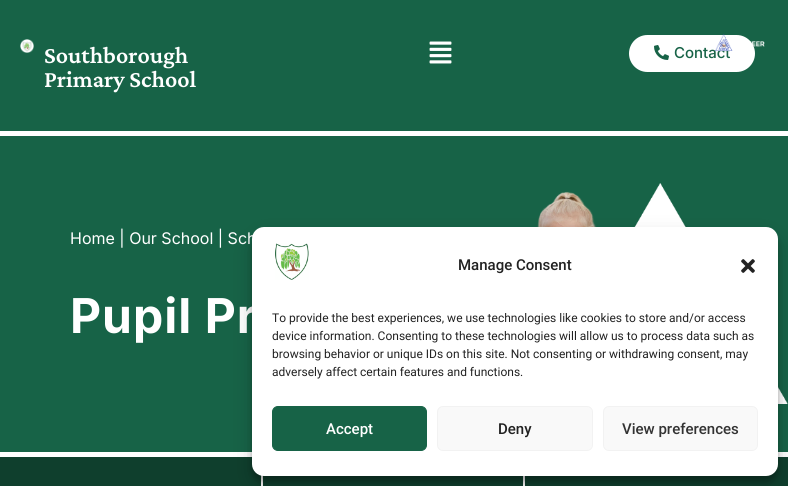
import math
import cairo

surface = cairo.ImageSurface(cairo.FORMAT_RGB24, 788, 486)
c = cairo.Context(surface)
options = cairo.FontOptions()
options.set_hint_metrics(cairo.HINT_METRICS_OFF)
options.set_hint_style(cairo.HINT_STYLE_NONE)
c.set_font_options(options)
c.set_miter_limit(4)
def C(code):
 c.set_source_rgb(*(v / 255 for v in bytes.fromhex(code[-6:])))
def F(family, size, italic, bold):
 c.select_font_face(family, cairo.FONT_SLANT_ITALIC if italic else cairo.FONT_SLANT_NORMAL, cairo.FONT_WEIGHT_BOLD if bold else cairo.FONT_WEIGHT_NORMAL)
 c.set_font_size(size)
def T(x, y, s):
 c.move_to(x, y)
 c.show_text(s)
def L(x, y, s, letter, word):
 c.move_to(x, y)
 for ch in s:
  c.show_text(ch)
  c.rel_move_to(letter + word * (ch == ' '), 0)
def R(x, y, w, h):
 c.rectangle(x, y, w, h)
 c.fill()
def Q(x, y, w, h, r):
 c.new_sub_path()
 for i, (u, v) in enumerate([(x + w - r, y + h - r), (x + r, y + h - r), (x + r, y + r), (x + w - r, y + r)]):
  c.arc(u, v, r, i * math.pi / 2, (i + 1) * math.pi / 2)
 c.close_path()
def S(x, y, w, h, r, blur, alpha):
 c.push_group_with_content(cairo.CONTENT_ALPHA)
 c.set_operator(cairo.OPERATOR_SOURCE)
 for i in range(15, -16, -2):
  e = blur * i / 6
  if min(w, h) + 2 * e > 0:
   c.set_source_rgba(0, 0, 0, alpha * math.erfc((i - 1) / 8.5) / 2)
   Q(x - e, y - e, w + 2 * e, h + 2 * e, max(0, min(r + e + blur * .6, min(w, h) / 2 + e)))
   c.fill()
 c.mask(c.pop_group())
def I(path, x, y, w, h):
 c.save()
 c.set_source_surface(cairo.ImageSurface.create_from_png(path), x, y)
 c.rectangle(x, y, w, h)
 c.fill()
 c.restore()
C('ffffff')
c.paint()
C('176347')
R(0,0,788,131)
I('1.png',20,39,14,14)
F('Crimson Pro SemiBold',24,0,0)
C('ffffff')
T(44,63,'Southborough')
T(44,87,'Primary School')
I('2.png',429,41,23,23)
Q(629,35,126,37,18.5)
c.fill()
I('3.png',654,45,15,15)
F('Inter Medium',15,0,0)
C('176347')
T(674,58,'Contact')
I('4.png',715,34,50,17)
c.new_path()
c.move_to(1,136)
c.line_to(788,136)
c.line_to(788,452)
c.line_to(0,452)
c.line_to(0,136)
c.close_path()
c.fill()
I('5.png',487,183,301,221)
F('Inter',16,0,0)
C('ffffff')
T(70,244,'Home | Our School | Sch')
F('Inter',48,0,1)
L(70,333,'Pupil Pr',1,0)
C('0f3f2d')
R(0,457,261,29)
R(263,475,260,11)
R(525,457,263,29)
C('000000')
S(252,233,526,249,12,3,.23)
S(252,237,526,249,12,10,.19)
C('ffffff')
Q(252,227,526,249,12)
c.fill()
I('6.png',275,243,34,37)
F('Roboto Medium',15,0,0)
C('222222')
T(458,270,'Manage Consent')
I('7.png',741,259,14,14)
F('Roboto',12,0,0)
T(272,322,'To provide the best experiences, we use technologies like cookies to store and/or access')
T(272,340,'device information. Consenting to these technologies will allow us to process data such as')
T(272,358,'browsing behavior or unique IDs on this site. Not consenting or withdrawing consent, may')
T(272,376,'adversely affect certain features and functions.')
C('176347')
Q(272.5,406.5,154,44,5.5)
c.fill_preserve()
c.set_line_width(1)
c.stroke()
F('Roboto Medium',15,0,0)
C('ffffff')
T(326,434,'Accept')
C('f9f9f9')
Q(437.5,406.5,155,44,5.5)
c.fill_preserve()
C('f2f2f2')
c.stroke()
C('222222')
T(498,434,'Deny')
C('f9f9f9')
Q(603.5,406.5,154,44,5.5)
c.fill_preserve()
C('f2f2f2')
c.stroke()
C('333333')
T(622,434,'View preferences')
surface.write_to_png('o.png')
